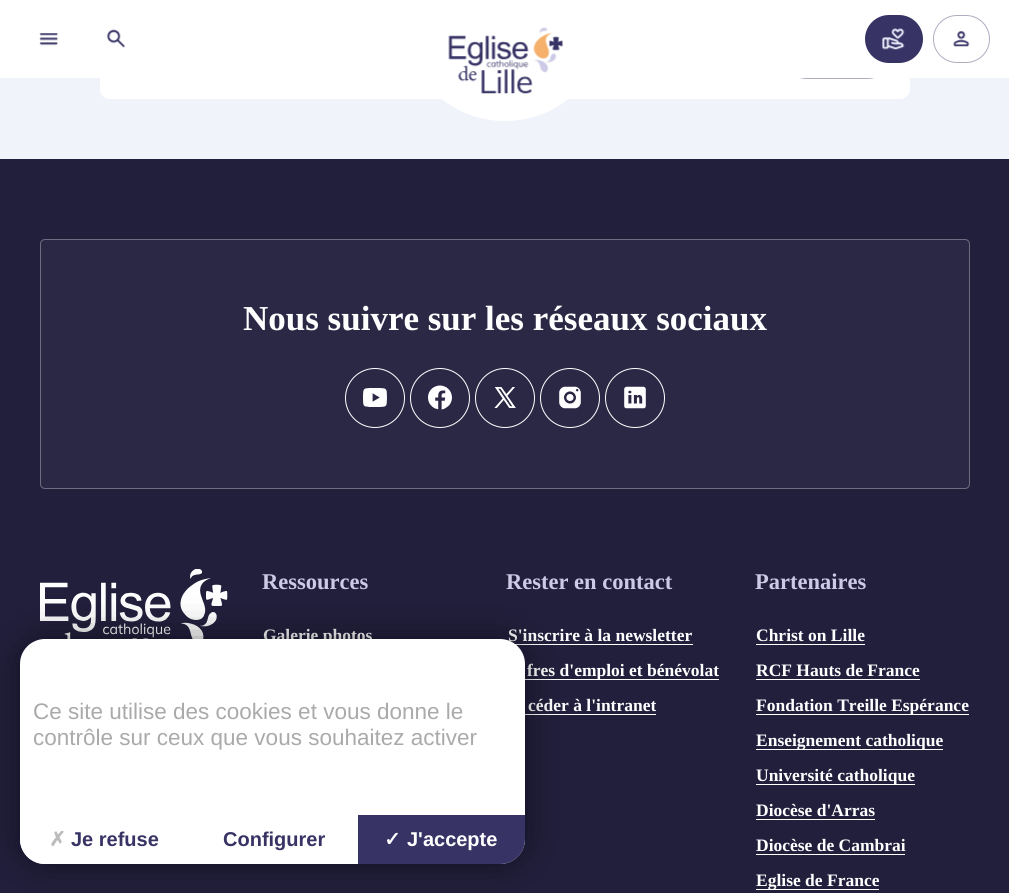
import math
import cairo

surface = cairo.ImageSurface(cairo.FORMAT_RGB24, 1009, 893)
c = cairo.Context(surface)
options = cairo.FontOptions()
options.set_hint_metrics(cairo.HINT_METRICS_OFF)
options.set_hint_style(cairo.HINT_STYLE_NONE)
c.set_font_options(options)
c.set_miter_limit(4)
def C(code):
 c.set_source_rgb(*(v / 255 for v in bytes.fromhex(code[-6:])))
def F(family, size, italic, bold):
 c.select_font_face(family, cairo.FONT_SLANT_ITALIC if italic else cairo.FONT_SLANT_NORMAL, cairo.FONT_WEIGHT_BOLD if bold else cairo.FONT_WEIGHT_NORMAL)
 c.set_font_size(size)
def T(x, y, s):
 c.move_to(x, y)
 c.show_text(s)
def R(x, y, w, h):
 c.rectangle(x, y, w, h)
 c.fill()
def Q(x, y, w, h, r):
 c.new_sub_path()
 for i, (u, v) in enumerate([(x + w - r, y + h - r), (x + r, y + h - r), (x + r, y + r), (x + w - r, y + r)]):
  c.arc(u, v, r, i * math.pi / 2, (i + 1) * math.pi / 2)
 c.close_path()
def S(x, y, w, h, r, blur, alpha):
 c.push_group_with_content(cairo.CONTENT_ALPHA)
 c.set_operator(cairo.OPERATOR_SOURCE)
 for i in range(15, -16, -2):
  e = blur * i / 6
  if min(w, h) + 2 * e > 0:
   c.set_source_rgba(0, 0, 0, alpha * math.erfc((i - 1) / 8.5) / 2)
   Q(x - e, y - e, w + 2 * e, h + 2 * e, max(0, min(r + e + blur * .6, min(w, h) / 2 + e)))
   c.fill()
 c.mask(c.pop_group())
def I(path, x, y, w, h):
 c.save()
 c.set_source_surface(cairo.ImageSurface.create_from_png(path), x, y)
 c.rectangle(x, y, w, h)
 c.fill()
 c.restore()
C('f0f4fa')
c.paint()
C('ffffff')
Q(100,14,810,85,10)
c.fill()
Q(784.5,34.5,105,44,22)
C('afadc1')
c.set_line_width(1)
c.stroke()
C('ffffff')
R(0,0,1009,78)
I('1.png',39,33,20,13)
I('2.png',107,29,19,19)
c.new_path()
c.move_to(404,0)
c.line_to(606,0)
c.line_to(606,20)
c.curve_to(606,76,561,121,505,121)
c.curve_to(449,121,404,76,404,20)
c.close_path()
c.fill()
I('3.png',448,27,115,67)
C('373365')
Q(865,15,58,48,24)
c.fill()
I('4.png',882,28,23,22)
Q(933.5,15.5,56,47,23.5)
C('afadc1')
c.stroke()
I('5.png',953,31,17,16)
C('221f3d')
R(0,159,1009,734)
C('2b2845')
Q(40,239,930,250,5)
c.fill()
Q(40.5,239.5,929,249,4.5)
c.set_source_rgba(1,1,1,0.32)
c.stroke()
F('Liberation Serif',35,0,1)
C('ffffff')
T(243,330,'Nous suivre sur les réseaux sociaux')
c.new_path()
c.arc(375,398,29.5,0,2 * math.pi)
c.stroke()
I('6.png',363,388,24,19)
c.arc(440,398,29.5,0,2 * math.pi)
c.stroke()
I('7.png',428,385,24,25)
c.arc(505,398,29.5,0,2 * math.pi)
c.stroke()
I('8.png',494,387,22,21)
c.arc(570,398,29.5,0,2 * math.pi)
c.stroke()
I('9.png',559,386,22,23)
c.arc(635,398,29.5,0,2 * math.pi)
c.stroke()
I('10.png',624,386,22,23)
I('11.png',40,569,188,70)
F('Liberation Serif',22.5,0,1)
C('cccae5')
T(262,589,'Ressources')
F('Liberation Serif',17.5,0,1)
C('ffffff')
T(263,641,'Galerie photos')
F('Liberation Serif',22.5,0,1)
C('cccae5')
T(506,589,'Rester en contact')
F('Liberation Serif',17.5,0,1)
C('ffffff')
T(508,641,'S\'inscrire à la newsletter')
R(508,644,185,1)
R(525,679,194,1)
T(527,676,'fres d\'emploi et bénévolat')
T(528,711,'céder à l\'intranet')
R(525,714,131,1)
F('Liberation Serif',22.5,0,1)
C('cccae5')
T(755,589,'Partenaires')
F('Liberation Serif',17.5,0,1)
C('ffffff')
T(756,641,'Christ on Lille')
R(756,644,109,1)
T(756,676,'RCF Hauts de France')
R(756,679,164,1)
R(756,714,213,1)
T(756,711,'Fondation Treille Espérance')
R(756,749,187,1)
T(756,746,'Enseignement catholique')
R(756,784,159,1)
T(756,781,'Université catholique')
T(756,816,'Diocèse d\'Arras')
R(756,819,119,1)
T(756,851,'Diocèse de Cambrai')
R(756,854,149,1)
R(756,889,123,1)
T(756,886,'Eglise de France')
C('000000')
S(20,639,505,225,25,19,.5)
C('ffffff')
Q(20,639,505,225,25)
c.fill()
F('Liberation Sans',22.5,0,0)
C('aaaaaa')
T(33,719,'Ce site utilise des cookies et vous donne le')
T(33,745,'contrôle sur ceux que vous souhaitez activer')
C('ffffff')
c.new_path()
c.move_to(20,815)
c.line_to(189,815)
c.line_to(189,864)
c.line_to(45,864)
c.curve_to(31,864,20,853,20,839)
c.close_path()
c.fill()
F('DejaVu Sans',20,0,1)
C('bbbbbb')
T(49,846,'✗')
F('Liberation Sans',20,0,1)
C('373365')
T(71,846,'Je refuse')
c.new_path()
c.move_to(356,815)
c.line_to(525,815)
c.line_to(525,839)
c.curve_to(525,853,514,864,500,864)
c.line_to(356,864)
c.close_path()
c.fill()
C('ffffff')
R(356,815,2,49)
C('373365')
T(223,846,'Configurer')
F('DejaVu Sans',20,0,1)
C('ffffff')
T(384,846,'✓')
F('Liberation Sans',20,0,1)
T(407,846,'J\'accepte')
surface.write_to_png('o.png')
